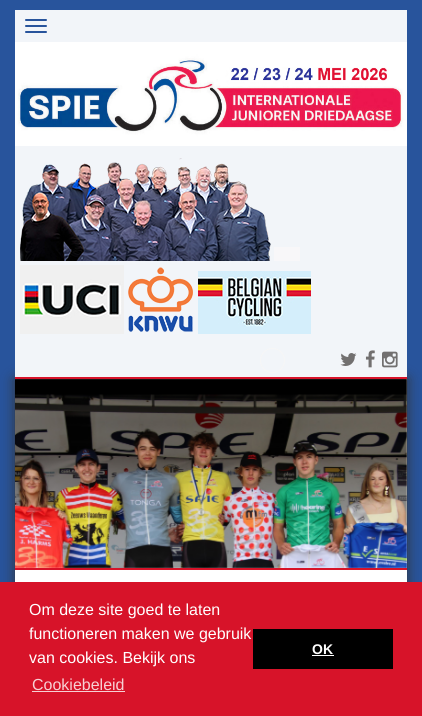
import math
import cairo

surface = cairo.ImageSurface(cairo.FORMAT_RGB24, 422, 716)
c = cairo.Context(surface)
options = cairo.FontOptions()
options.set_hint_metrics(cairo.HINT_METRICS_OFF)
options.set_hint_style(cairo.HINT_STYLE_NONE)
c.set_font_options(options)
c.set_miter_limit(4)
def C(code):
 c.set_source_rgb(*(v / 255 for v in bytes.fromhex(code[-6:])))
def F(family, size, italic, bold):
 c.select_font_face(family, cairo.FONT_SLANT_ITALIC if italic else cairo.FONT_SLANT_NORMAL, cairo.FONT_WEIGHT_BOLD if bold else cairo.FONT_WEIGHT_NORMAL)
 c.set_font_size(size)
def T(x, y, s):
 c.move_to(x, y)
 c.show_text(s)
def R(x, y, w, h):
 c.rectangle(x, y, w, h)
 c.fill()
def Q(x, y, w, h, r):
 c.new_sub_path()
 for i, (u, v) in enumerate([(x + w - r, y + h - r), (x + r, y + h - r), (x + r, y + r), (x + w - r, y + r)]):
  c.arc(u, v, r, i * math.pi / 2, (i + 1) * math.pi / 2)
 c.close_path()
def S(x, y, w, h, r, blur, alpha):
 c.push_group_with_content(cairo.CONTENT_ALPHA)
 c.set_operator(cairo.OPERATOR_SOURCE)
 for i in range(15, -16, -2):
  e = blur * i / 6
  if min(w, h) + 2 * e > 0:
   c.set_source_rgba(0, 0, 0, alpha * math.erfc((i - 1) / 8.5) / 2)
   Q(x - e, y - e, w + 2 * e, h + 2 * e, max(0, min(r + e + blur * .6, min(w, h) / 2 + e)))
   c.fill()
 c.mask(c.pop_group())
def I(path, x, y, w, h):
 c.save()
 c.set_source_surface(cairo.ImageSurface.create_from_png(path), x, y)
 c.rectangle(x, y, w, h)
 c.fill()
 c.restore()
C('28549c')
c.paint()
C('323232')
S(15,379,392,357,0,6.5,1)
c.set_source_rgba(1,1,1,0.94)
R(15,10,392,367)
C('d71329')
R(15,377,392,2)
C('28549c')
Q(25,19,22,2,1)
c.fill()
Q(25,25,22,2,1)
c.fill()
Q(25,31,22,2,1)
c.fill()
I('1.png',15,42,392,104)
I('2.png',20,158,251,103)
C('f8f7f9')
R(274,247,26,14)
I('3.png',20,265,104,69)
I('4.png',128,267,65,65)
I('5.png',198,271,113,63)
c.arc(272.5,360.5,12,0,2 * math.pi)
C('f6f6f6')
c.set_line_width(1)
c.stroke()
I('6.png',340,353,17,13)
I('7.png',365,350,10,18)
I('8.png',382,351,16,17)
C('ffffff')
R(15,379,392,203)
I('9.png',15,379,392,189)
C('d71329')
R(15,568,392,2)
R(0,582,422,134)
F('Liberation Sans',16,0,0)
C('ffffff')
T(29,615,'Om deze site goed te laten')
T(29,639,'functioneren maken we gebruik')
T(29,663,'van cookies. Bekijk ons')
C('f7d0d4')
T(32,690,'Cookiebeleid')
R(32,691,93,1)
C('000000')
R(253,629,140,40)
F('Liberation Sans',14,0,1)
C('ffffff')
T(312,654,'OK')
R(312,655,22,1)
surface.write_to_png('o.png')
